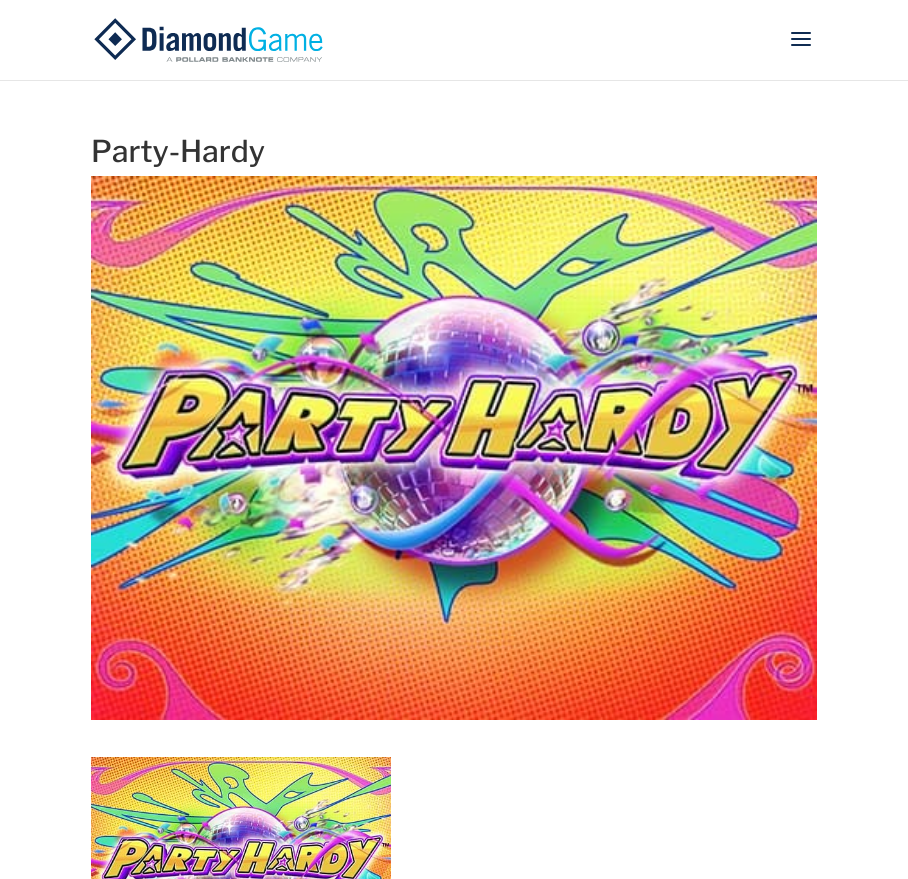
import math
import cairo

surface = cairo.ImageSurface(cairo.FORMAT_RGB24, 908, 879)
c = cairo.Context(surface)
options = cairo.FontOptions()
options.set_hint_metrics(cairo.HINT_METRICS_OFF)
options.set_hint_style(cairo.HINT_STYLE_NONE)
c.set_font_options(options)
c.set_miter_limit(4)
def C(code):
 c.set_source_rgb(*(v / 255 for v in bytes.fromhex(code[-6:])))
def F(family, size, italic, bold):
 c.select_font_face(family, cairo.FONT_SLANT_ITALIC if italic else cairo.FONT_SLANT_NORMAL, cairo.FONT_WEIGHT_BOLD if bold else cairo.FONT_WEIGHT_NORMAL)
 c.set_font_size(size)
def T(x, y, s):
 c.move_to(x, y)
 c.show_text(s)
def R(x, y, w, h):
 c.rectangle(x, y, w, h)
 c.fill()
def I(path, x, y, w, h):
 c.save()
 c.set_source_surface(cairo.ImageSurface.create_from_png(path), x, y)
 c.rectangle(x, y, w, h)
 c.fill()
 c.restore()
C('ffffff')
c.paint()
C('e6e6e6')
R(0,80,908,1)
I('1.png',94,18,229,44)
I('2.png',791,32,20,14)
F('Libre Franklin Medium',30,0,0)
C('333333')
T(91,162,'Party-Hardy')
I('3.png',91,176,726,544)
I('4.png',91,757,300,122)
surface.write_to_png('o.png')
